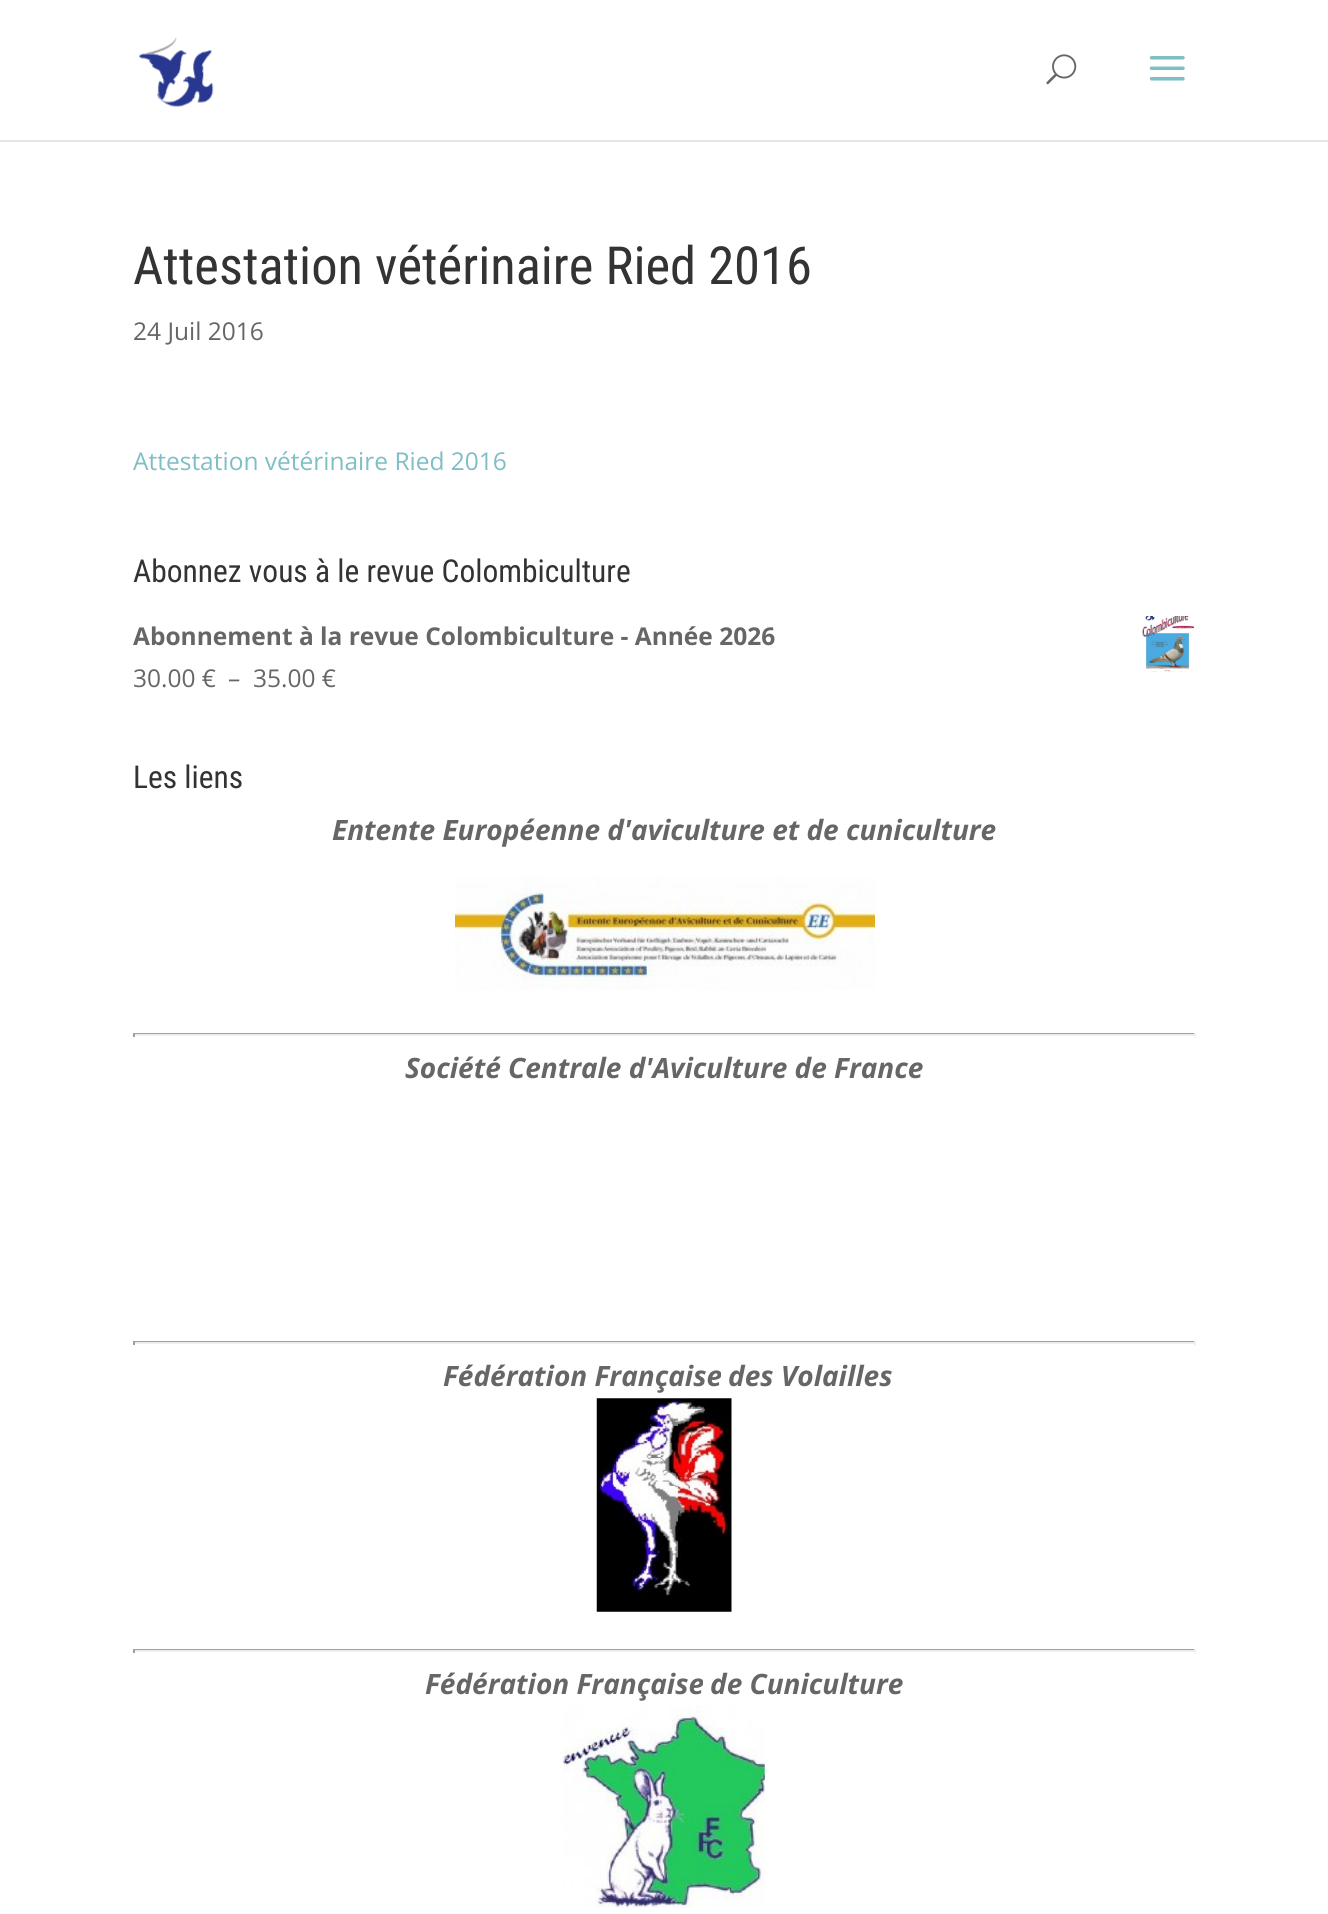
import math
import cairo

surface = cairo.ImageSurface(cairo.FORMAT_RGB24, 1328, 1914)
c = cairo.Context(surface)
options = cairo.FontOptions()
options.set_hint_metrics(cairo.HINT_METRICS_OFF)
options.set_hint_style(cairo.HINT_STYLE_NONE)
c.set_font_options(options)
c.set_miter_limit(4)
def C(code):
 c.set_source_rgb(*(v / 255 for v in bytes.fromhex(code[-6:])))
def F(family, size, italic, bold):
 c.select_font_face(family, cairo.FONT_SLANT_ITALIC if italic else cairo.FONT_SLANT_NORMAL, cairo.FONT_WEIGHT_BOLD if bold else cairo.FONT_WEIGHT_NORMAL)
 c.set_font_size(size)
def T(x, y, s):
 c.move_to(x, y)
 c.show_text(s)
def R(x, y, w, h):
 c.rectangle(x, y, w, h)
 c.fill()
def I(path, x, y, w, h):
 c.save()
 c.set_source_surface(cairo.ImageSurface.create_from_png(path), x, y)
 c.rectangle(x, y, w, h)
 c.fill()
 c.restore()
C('ffffff')
c.paint()
C('e6e6e6')
R(0,140,1328,2)
I('1.png',139,37,75,70)
I('2.png',1046,54,31,31)
I('3.png',1149,56,36,25)
F('Roboto Condensed',52.5,0,0)
C('333333')
T(133,284,'Attestation vétérinaire Ried 2016')
F('Open Sans',24.5,0,0)
C('666666')
T(133,340,'24 Juil 2016')
C('7ebec5')
T(133,470,'Attestation vétérinaire Ried 2016')
F('Roboto Condensed',31.5,0,0)
C('333333')
T(133,582,'Abonnez vous à le revue Colombiculture')
F('Open Sans',24.5,0,1)
C('666666')
T(133,645,'Abonnement à la revue Colombiculture - Année 2026')
I('4.png',1142,616,53,56)
F('Open Sans',24.5,0,0)
T(133,687,'30.00 €')
T(228,687,'–')
T(253,687,'35.00 €')
F('Roboto Condensed',31.5,0,0)
C('333333')
T(133,788,'Les liens')
F('Open Sans',28,1,1)
C('666666')
T(332,840,'Entente Européenne d\'aviculture et de cuniculture')
I('5.png',455,877,420,113)
C('9f9f9f')
R(133,1033,1062,1)
C('eeeeee')
R(1194,1033,2,4)
R(133,1034,1062,2)
C('9f9f9f')
R(133,1033,2,4)
C('666666')
T(405,1078,'Société Centrale d\'Aviculture de France')
C('9f9f9f')
R(133,1341,1062,1)
C('eeeeee')
R(1194,1341,2,4)
R(133,1342,1062,2)
C('9f9f9f')
R(133,1341,2,4)
C('666666')
T(443,1386,'Fédération Française')
T(728,1386,'des Volailles')
I('6.png',596,1398,136,214)
C('9f9f9f')
R(133,1649,1062,1)
C('eeeeee')
R(1194,1649,2,4)
R(133,1650,1062,2)
C('9f9f9f')
R(133,1649,2,4)
C('666666')
T(425,1694,'Fédération Française')
T(710,1694,'de Cuniculture')
I('7.png',563,1706,202,202)
surface.write_to_png('o.png')
